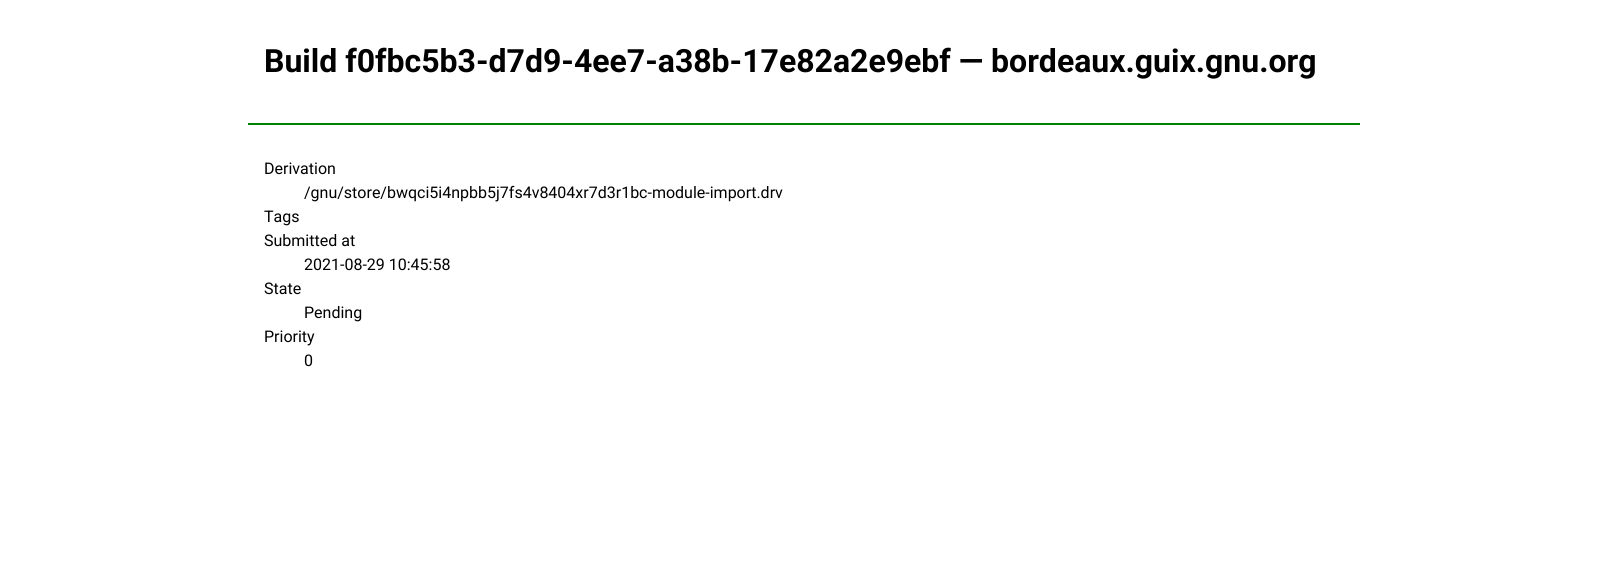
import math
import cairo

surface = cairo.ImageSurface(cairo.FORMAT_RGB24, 1607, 581)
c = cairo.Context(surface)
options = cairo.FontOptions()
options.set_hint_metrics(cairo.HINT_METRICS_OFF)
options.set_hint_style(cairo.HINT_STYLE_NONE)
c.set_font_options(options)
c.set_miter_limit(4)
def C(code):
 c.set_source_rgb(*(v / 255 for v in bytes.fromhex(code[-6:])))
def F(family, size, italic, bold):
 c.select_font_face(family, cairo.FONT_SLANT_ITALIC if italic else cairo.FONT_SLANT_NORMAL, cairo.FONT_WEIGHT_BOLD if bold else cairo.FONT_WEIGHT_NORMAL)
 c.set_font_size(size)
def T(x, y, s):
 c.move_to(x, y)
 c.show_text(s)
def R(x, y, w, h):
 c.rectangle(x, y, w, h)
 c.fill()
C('ffffff')
c.paint()
C('008000')
R(248,123,1112,2)
F('Roboto',32,0,1)
C('000000')
T(264,72,'Build f0fbc5b3-d7d9-4ee7-a38b-17e82a2e9ebf — bordeaux.guix.gnu.org')
F('Roboto',16,0,0)
T(264,174,'Derivation')
T(304,198,'/gnu/store/bwqci5i4npbb5j7fs4v8404xr7d3r1bc-module-import.drv')
T(264,222,'Tags')
T(264,246,'Submitted at')
T(304,270,'2021-08-29 10:45:58')
T(264,294,'State')
T(304,318,'Pending')
T(264,342,'Priority')
T(304,366,'0')
surface.write_to_png('o.png')
